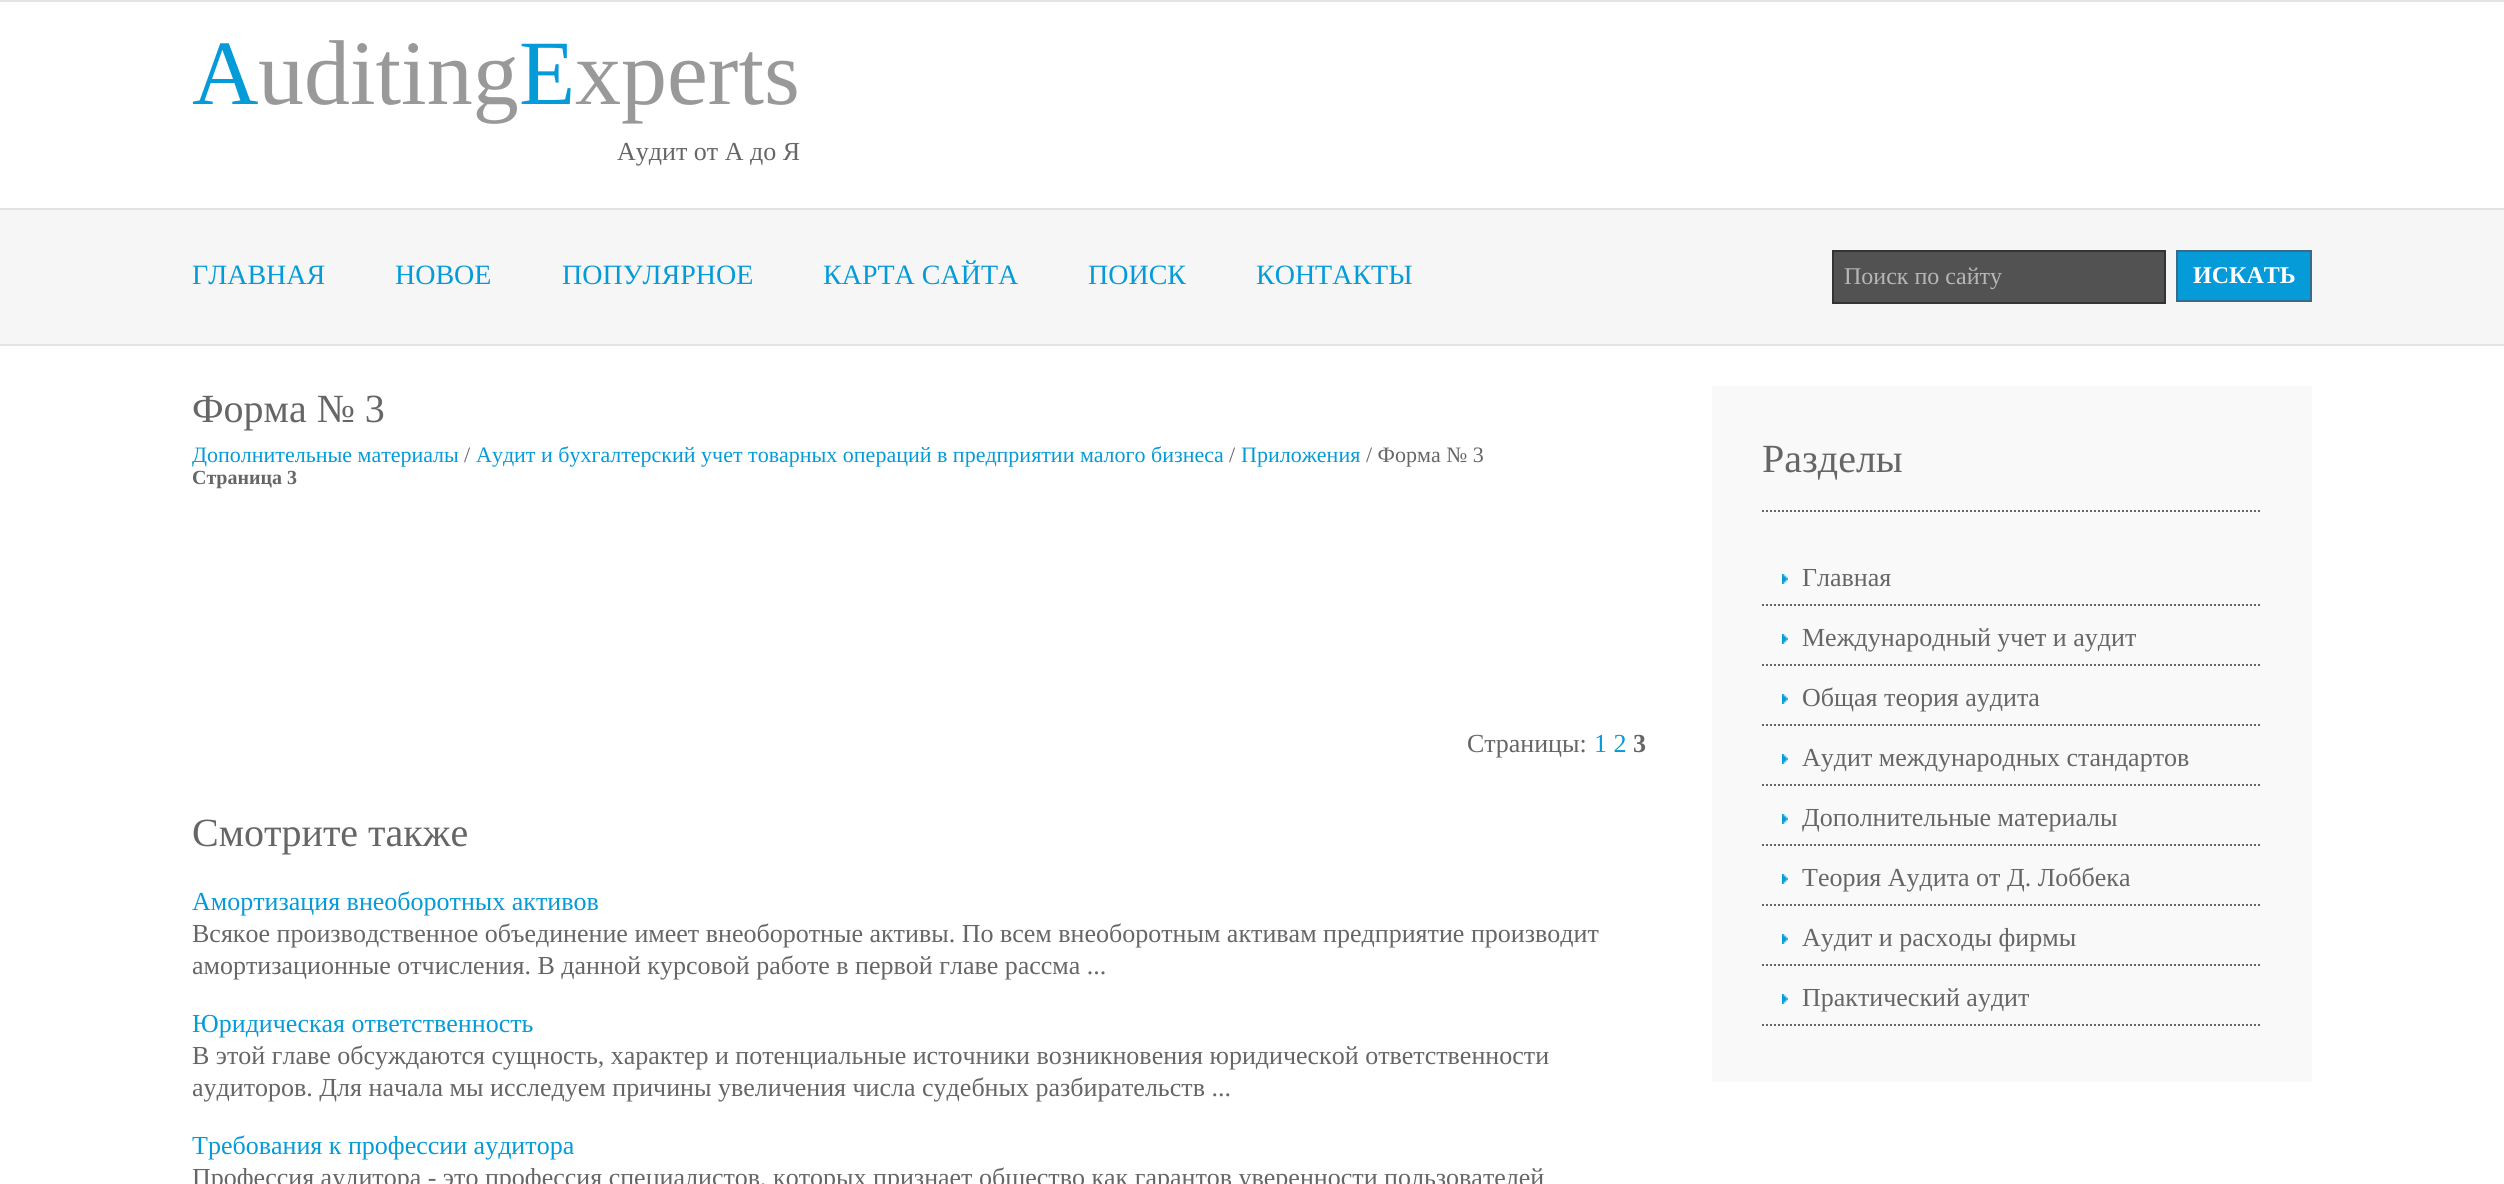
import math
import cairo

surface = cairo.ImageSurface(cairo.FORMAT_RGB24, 2504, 1184)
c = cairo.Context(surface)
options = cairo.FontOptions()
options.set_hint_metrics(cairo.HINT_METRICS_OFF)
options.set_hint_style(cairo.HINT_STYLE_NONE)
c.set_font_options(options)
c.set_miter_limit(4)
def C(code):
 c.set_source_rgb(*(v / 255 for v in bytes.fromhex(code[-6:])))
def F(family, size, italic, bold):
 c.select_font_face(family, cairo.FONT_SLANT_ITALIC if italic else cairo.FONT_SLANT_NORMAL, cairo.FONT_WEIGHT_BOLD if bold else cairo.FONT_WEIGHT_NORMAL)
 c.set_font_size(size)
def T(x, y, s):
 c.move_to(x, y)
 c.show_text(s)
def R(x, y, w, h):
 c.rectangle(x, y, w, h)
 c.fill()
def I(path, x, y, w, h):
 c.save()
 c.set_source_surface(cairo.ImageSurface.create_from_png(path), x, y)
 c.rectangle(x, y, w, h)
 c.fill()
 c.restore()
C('ffffff')
c.paint()
C('e3e3e3')
R(0,0,2504,2)
R(0,208,2504,2)
F('Liberation Serif',92,0,0)
C('059bd8')
T(192,104,'A')
C('999999')
T(258,104,'uditing')
C('059bd8')
T(519,104,'E')
C('999999')
T(575,104,'xperts')
F('Liberation Serif',26,0,0)
C('666666')
T(617,160,'Аудит от А до Я')
C('f6f6f6')
R(0,210,2504,134)
C('e3e3e3')
R(0,344,2504,2)
F('Liberation Serif',28,0,0)
C('059bd8')
T(192,284,'ГЛАВНАЯ')
T(395,284,'НОВОЕ')
T(562,284,'ПОПУЛЯРНОЕ')
T(823,284,'КАРТА САЙТА')
T(1088,284,'ПОИСК')
T(1256,284,'КОНТАКТЫ')
C('525252')
c.rectangle(1833,251,332,52)
c.fill_preserve()
C('343434')
c.stroke()
F('Liberation Serif',24,0,0)
C('b6b6b6')
T(1844,284,'Поиск по сайту')
C('059bd8')
c.rectangle(2177,251,134,50)
c.fill_preserve()
C('396b86')
c.stroke()
F('Liberation Serif',24,0,1)
C('ffffff')
T(2193,283,'ИСКАТЬ')
F('Liberation Serif',40,0,0)
C('666666')
T(192,422,'Форма № 3')
F('Liberation Serif',22,0,0)
C('059bd8')
T(192,462,'Дополнительные материалы')
C('666666')
T(464,462,'/')
C('059bd8')
T(476,462,'Аудит и бухгалтерский учет товарных операций в предприятии малого бизнеса')
C('666666')
T(1229,462,'/')
C('059bd8')
T(1241,462,'Приложения')
C('666666')
T(1366,462,'/ Форма № 3')
F('Liberation Serif',20,0,1)
T(192,484,'Страница 3')
F('Liberation Serif',26,0,0)
T(1467,752,'Страницы:')
C('059bd8')
T(1594,752,'1 2')
F('Liberation Serif',26,0,1)
C('666666')
T(1633,752,'3')
F('Liberation Serif',40,0,0)
T(192,846,'Смотрите также')
F('Liberation Serif',26,0,0)
C('059bd8')
T(192,910,'Амортизация внеоборотных активов')
C('666666')
T(192,942,'Всякое производственное объединение имеет внеоборотные активы. По всем внеоборотным активам предприятие производит')
T(192,974,'амортизационные отчисления. В данной курсовой работе в первой главе рассма ...')
C('059bd8')
T(192,1032,'Юридическая ответственность')
C('666666')
T(192,1064,'В этой главе обсуждаются сущность, характер и потенциальные источники возникновения юридической ответственности')
T(192,1096,'аудиторов. Для начала мы исследуем причины увеличения числа судебных разбирательств ...')
C('059bd8')
T(192,1154,'Требования к профессии аудитора')
C('666666')
T(192,1186,'Профессия аудитора - это профессия специалистов, которых признает общество как гарантов уверенности пользователей')
C('f9f9f9')
R(1712,386,600,696)
c.new_path()
c.move_to(1762,511)
c.line_to(2262,511)
C('666666')
c.set_dash([2,2])
c.stroke()
F('Liberation Serif',40,0,0)
T(1762,472,'Разделы')
I('1.png',1782,574,6,10)
c.new_path()
c.move_to(1762,605)
c.line_to(2262,605)
c.stroke()
F('Liberation Serif',26,0,0)
T(1802,586,'Главная')
I('1.png',1782,634,6,10)
c.new_path()
c.move_to(1762,665)
c.line_to(2262,665)
c.stroke()
T(1802,646,'Международный учет и аудит')
I('1.png',1782,694,6,10)
c.new_path()
c.move_to(1762,725)
c.line_to(2262,725)
c.stroke()
T(1802,706,'Общая теория аудита')
I('1.png',1782,754,6,10)
c.new_path()
c.move_to(1762,785)
c.line_to(2262,785)
c.stroke()
T(1802,766,'Аудит международных стандартов')
I('1.png',1782,814,6,10)
c.new_path()
c.move_to(1762,845)
c.line_to(2262,845)
c.stroke()
T(1802,826,'Дополнительные материалы')
I('1.png',1782,874,6,10)
c.new_path()
c.move_to(1762,905)
c.line_to(2262,905)
c.stroke()
T(1802,886,'Теория Аудита от Д. Лоббека')
I('1.png',1782,934,6,10)
c.new_path()
c.move_to(1762,965)
c.line_to(2262,965)
c.stroke()
T(1802,946,'Аудит и расходы фирмы')
I('1.png',1782,994,6,10)
c.new_path()
c.move_to(1762,1025)
c.line_to(2262,1025)
c.stroke()
T(1802,1006,'Практический аудит')
surface.write_to_png('o.png')
